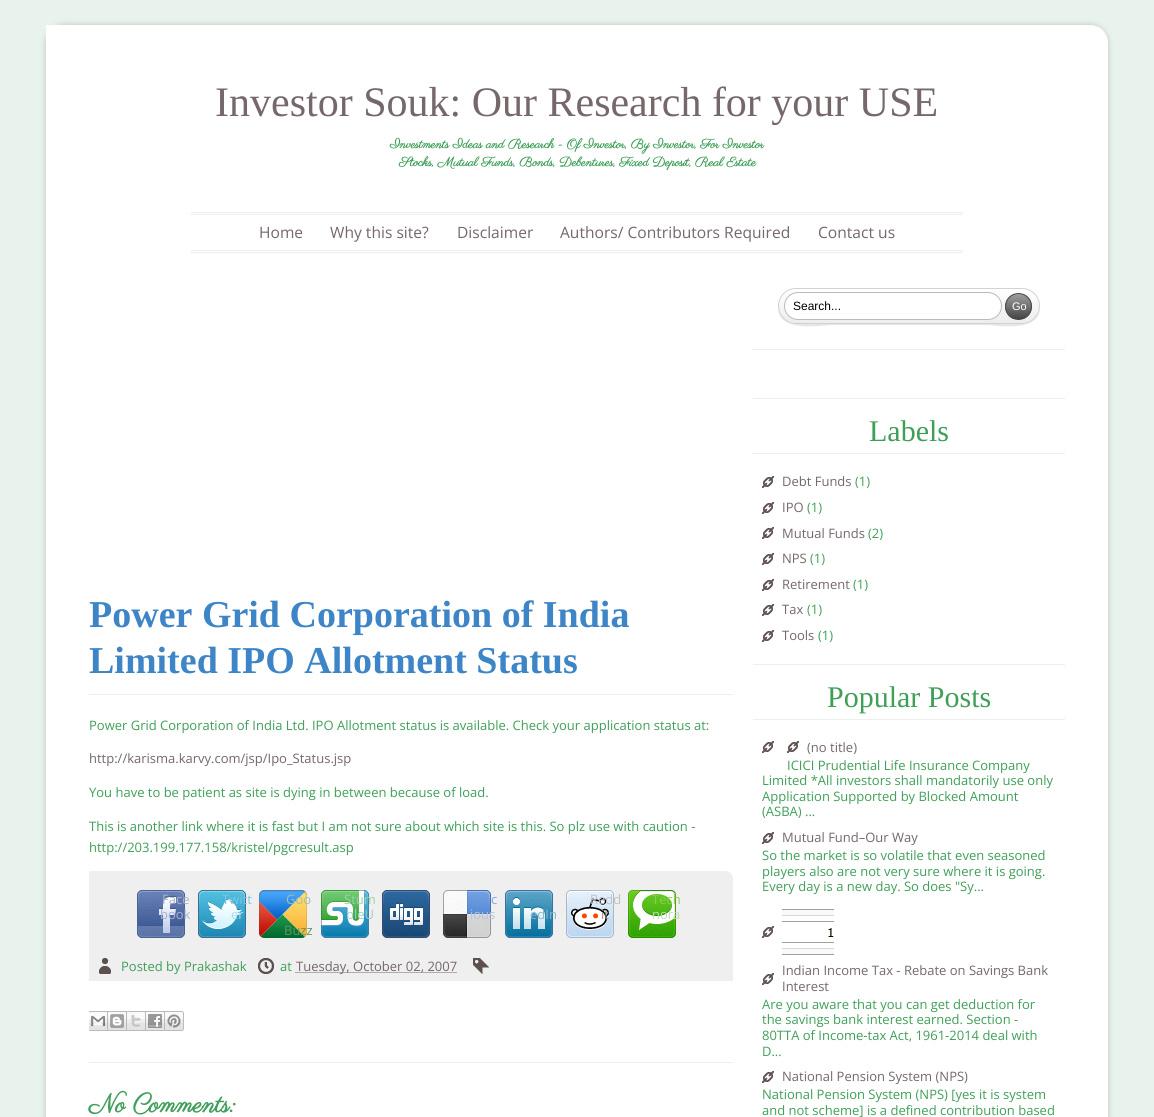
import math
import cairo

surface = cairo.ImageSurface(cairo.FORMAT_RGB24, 1154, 1117)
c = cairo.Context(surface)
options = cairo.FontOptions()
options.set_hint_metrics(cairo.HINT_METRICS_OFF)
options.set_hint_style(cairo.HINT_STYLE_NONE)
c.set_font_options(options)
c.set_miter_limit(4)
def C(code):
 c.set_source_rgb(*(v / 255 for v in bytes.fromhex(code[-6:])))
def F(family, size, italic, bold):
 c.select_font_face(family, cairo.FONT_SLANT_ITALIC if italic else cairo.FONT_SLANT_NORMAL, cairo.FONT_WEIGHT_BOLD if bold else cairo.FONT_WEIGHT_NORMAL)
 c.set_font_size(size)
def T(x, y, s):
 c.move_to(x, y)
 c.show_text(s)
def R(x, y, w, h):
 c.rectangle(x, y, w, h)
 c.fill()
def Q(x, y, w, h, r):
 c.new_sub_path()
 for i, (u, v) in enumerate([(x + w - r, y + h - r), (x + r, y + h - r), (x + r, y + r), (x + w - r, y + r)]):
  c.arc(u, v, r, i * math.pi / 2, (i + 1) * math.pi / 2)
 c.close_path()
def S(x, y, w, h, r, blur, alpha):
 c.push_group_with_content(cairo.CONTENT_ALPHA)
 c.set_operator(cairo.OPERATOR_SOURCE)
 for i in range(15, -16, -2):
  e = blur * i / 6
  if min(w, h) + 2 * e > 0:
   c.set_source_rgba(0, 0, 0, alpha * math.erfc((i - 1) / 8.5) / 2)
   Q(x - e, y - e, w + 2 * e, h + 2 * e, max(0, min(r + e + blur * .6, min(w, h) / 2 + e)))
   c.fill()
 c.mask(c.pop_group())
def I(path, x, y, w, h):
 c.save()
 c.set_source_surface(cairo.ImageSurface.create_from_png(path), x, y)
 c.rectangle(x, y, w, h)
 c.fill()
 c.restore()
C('e8f3ed')
c.paint()
C('c1bfbf')
S(46,25,1062,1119,18,3,1)
C('ffffff')
c.new_path()
c.move_to(46,25)
c.line_to(1090,25)
c.curve_to(1100,25,1108,33,1108,43)
c.line_to(1108,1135)
c.line_to(46,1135)
c.close_path()
c.fill()
F('Liberation Serif',42,0,0)
C('75676a')
T(215,116,'Investor Souk: Our Research for your USE')
F('Parisienne',13,0,1)
C('3f9f59')
T(390,148,'Investments Ideas and Research - Of Investor, By Investor, For Investor')
T(399,166,'Stocks, Mutual Funds, Bonds, Debentures, Fixed Deposit, Real Estate')
C('eeeeee')
R(191,212,772,1)
R(191,214,772,1)
R(191,250,772,1)
R(191,252,772,1)
F('Open Sans',15.6,0,0)
C('75676a')
T(259,238,'Home')
T(330,238,'Why this site?')
T(457,238,'Disclaimer')
T(560,238,'Authors/ Contributors Required')
T(818,238,'Contact us')
C('eeeeee')
R(89,694,644,1)
F('Liberation Serif',38,0,1)
C('3d85c6')
T(89,627,'Power Grid Corporation of India')
T(89,673,'Limited IPO Allotment Status')
F('Open Sans',13,0,0)
C('3f9f59')
T(89,730,'Power Grid Corporation of India Ltd. IPO Allotment status is available. Check your application status at:')
C('75676a')
T(89,763,'http://karisma.karvy.com/jsp/Ipo_Status.jsp')
C('3f9f59')
T(89,797,'You have to be patient as site is dying in between because of load.')
T(89,831,'This is another link where it is fast but I am not sure about which site is this. So plz use with caution -')
T(89,852,'http://203.199.177.158/kristel/pgcresult.asp')
C('efefef')
c.new_path()
c.move_to(89,871)
c.line_to(725,871)
c.curve_to(729.5,871,733,874.5,733,879)
c.line_to(733,981)
c.line_to(89,981)
c.close_path()
c.fill()
I('1.png',137,890,48,48)
C('a6b3d0')
T(162,904,'Face')
T(160,919,'book')
I('2.png',198,890,48,48)
C('7ac6de')
T(222,904,'Twitt')
C('aedcec')
T(231,919,'er')
I('3.png',259,890,48,48)
C('9fbcba')
T(286,904,'Goo')
C('5f9758')
T(284,935,'Buzz')
I('4.png',321,890,48,48)
C('9ad2ab')
T(344,904,'Stum')
C('9dcfc6')
T(346,919,'bleU')
I('5.png',382,890,48,48)
I('6.png',443,890,48,48)
C('80a8df')
T(491,904,'c')
C('b7c4d7')
T(470,919,'ious')
I('7.png',505,890,48,48)
C('85b9d0')
T(530,919,'edIn')
I('8.png',566,890,48,48)
C('bac1c8')
T(590,904,'Redd')
C('909395')
T(601,919,'it')
I('9.png',628,890,48,48)
C('87ce59')
T(652,904,'Tech')
C('bddfac')
T(652,919,'nora')
I('10.png',99,958,12,16)
C('3f9f59')
T(121,971,'Posted by Prakashak')
I('11.png',258,958,16,16)
T(280,971,'at')
c.new_path()
c.move_to(295.5,972.5)
c.line_to(456.5,972.5)
C('75676a')
c.set_line_width(1)
c.set_dash([1,1])
c.stroke()
T(296,971,'Tuesday, October 02, 2007')
I('12.png',473,958,16,16)
I('13.png',89,1011,19,20)
I('14.png',108,1011,19,20)
I('15.png',127,1011,19,20)
I('16.png',146,1011,19,20)
I('17.png',165,1011,19,20)
C('eeeeee')
R(89,1062,644,1)
F('Parisienne',26,0,1)
C('3f9f59')
T(89,1112,'No Comments:')
C('eeeeee')
R(753,349,312,1)
C('e6e6e6')
c.new_path()
c.move_to(778,306)
c.curve_to(777,334,822,325,834,325)
c.line_to(984,325)
c.curve_to(996,325,1041,334,1040,306)
c.curve_to(1040,316,1032,324,1022,324)
c.line_to(796,324)
c.curve_to(786,324,778,316,778,306)
c.close_path()
c.fill()
c.save()
Q(778,288,262,36,18)
c.clip()
gradient = cairo.LinearGradient(779,289,779,323)
gradient.add_color_stop_rgba(0,1,1,1,1)
gradient.add_color_stop_rgba(1,0.929,0.929,0.929,1)
c.set_source(gradient)
R(778,289,262,34)
c.restore()
Q(778.5,288.5,261,35,17.5)
C('d2d2d2')
c.set_dash([])
c.stroke()
C('ffffff')
Q(784.5,292.5,217,27,13.5)
c.fill_preserve()
C('bcbbbb')
c.stroke()
F('Liberation Sans',12,0,0)
C('000000')
T(793,310,'Search...')
c.save()
Q(1005,293,27,27,13.5)
c.clip()
gradient = cairo.LinearGradient(1006,294,1006,319)
gradient.add_color_stop_rgba(0,0.62,0.62,0.62,1)
gradient.add_color_stop_rgba(1,0.271,0.271,0.271,1)
c.set_source(gradient)
R(1005,294,27,25)
c.restore()
c.arc(1018.5,306.5,13,0,2 * math.pi)
C('494949')
c.stroke()
F('Liberation Sans',11,0,0)
C('ffffff')
T(1012,310,'Go')
C('eeeeee')
R(753,398,312,1)
R(753,664,312,1)
R(753,453,312,1)
F('Liberation Serif',30,0,0)
C('3f9f59')
T(869,441,'Labels')
I('18.png',762,476,12,12)
F('Open Sans',13,0,0)
C('75676a')
T(782,486,'Debt Funds')
C('3f9f59')
T(855,486,'(1)')
I('18.png',762,502,12,12)
C('75676a')
T(782,512,'IPO')
C('3f9f59')
T(807,512,'(1)')
I('18.png',762,527,12,12)
C('75676a')
T(782,538,'Mutual Funds')
C('3f9f59')
T(868,538,'(2)')
I('18.png',762,553,12,12)
C('75676a')
T(782,563,'NPS')
C('3f9f59')
T(810,563,'(1)')
I('18.png',762,579,12,12)
C('75676a')
T(782,589,'Retirement')
C('3f9f59')
T(853,589,'(1)')
I('18.png',762,604,12,12)
C('75676a')
T(782,614,'Tax')
C('3f9f59')
T(807,614,'(1)')
I('18.png',762,630,12,12)
C('75676a')
T(782,640,'Tools')
C('3f9f59')
T(818,640,'(1)')
C('eeeeee')
R(753,719,312,1)
F('Liberation Serif',30,0,0)
C('3f9f59')
T(827,707,'Popular Posts')
I('18.png',762,741,12,12)
I('18.png',787,741,12,12)
F('Open Sans',13,0,0)
C('75676a')
T(807,752,'(no title)')
C('3f9f59')
T(787,770,'ICICI Prudential Life Insurance Company')
T(762,785,'Limited *All investors shall mandatorily use only')
T(762,801,'Application Supported by Blocked Amount')
T(762,816,'(ASBA) ...')
I('18.png',762,832,12,12)
C('75676a')
T(782,842,'Mutual Fund–Our Way')
C('3f9f59')
T(762,860,'So the market is so volatile that even seasoned')
T(762,876,'players also are not very sure where it is going.')
T(762,891,'Every day is a new day. So does "Sy...')
I('18.png',762,926,12,12)
I('19.png',782,909,52,46)
I('18.png',762,973,12,12)
C('75676a')
T(782,975,'Indian Income Tax - Rebate on Savings Bank')
T(782,991,'Interest')
C('3f9f59')
T(762,1009,'Are you aware that you can get deduction for')
T(762,1024,'the savings bank interest earned. Section -')
T(762,1040,'80TTA of Income-tax Act, 1961-2014 deal with')
T(762,1056,'D...')
I('18.png',762,1071,12,12)
C('75676a')
T(782,1081,'National Pension System (NPS)')
C('3f9f59')
T(762,1099,'National Pension System (NPS) [yes it is system')
T(762,1115,'and not scheme] is a defined contribution based')
surface.write_to_png('o.png')
